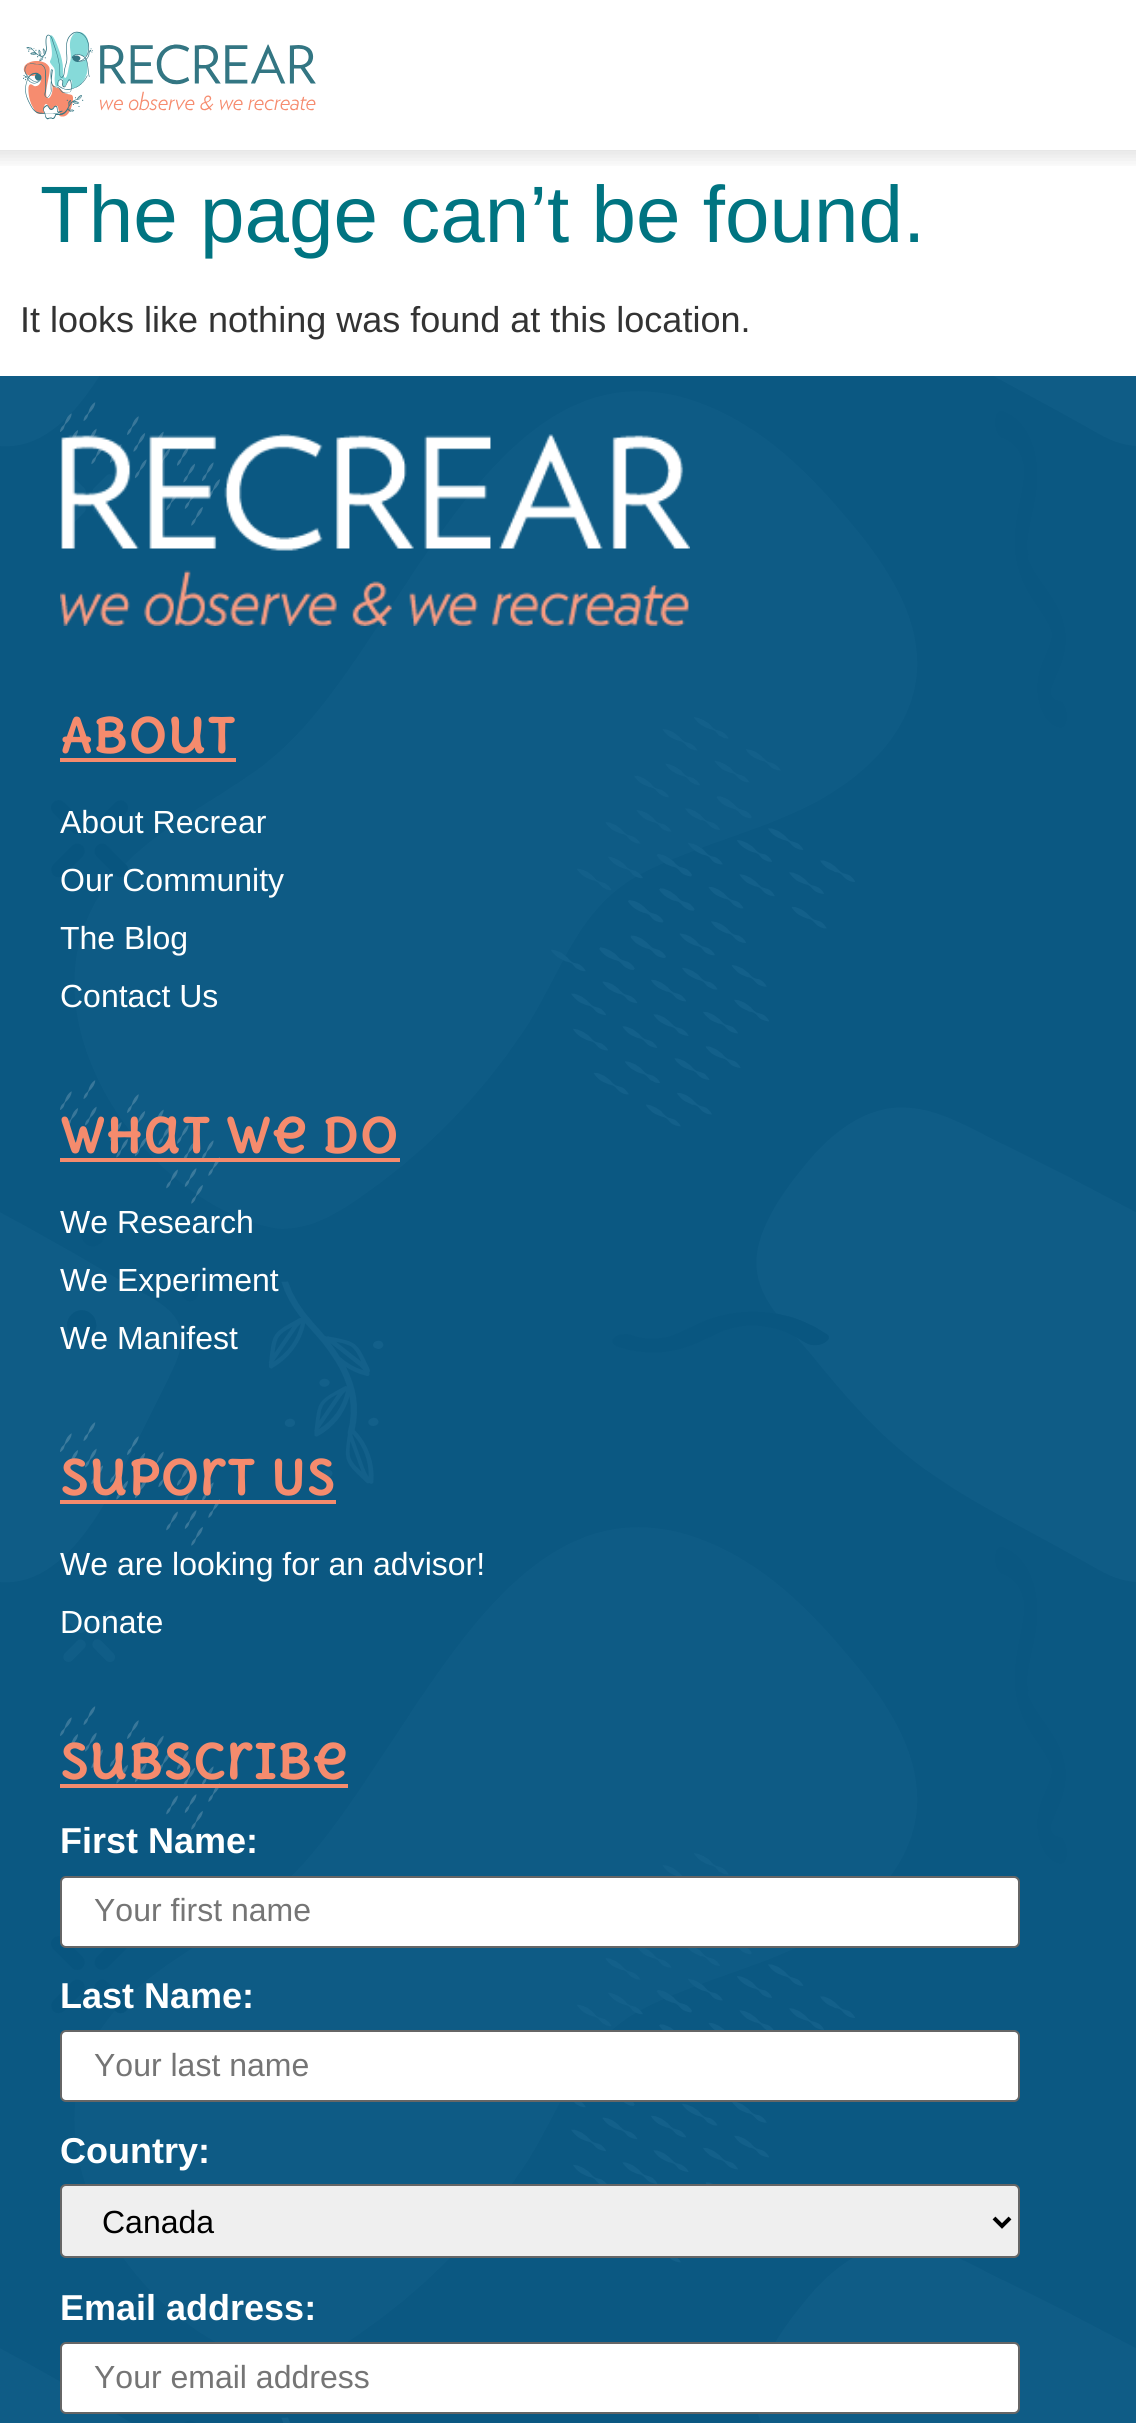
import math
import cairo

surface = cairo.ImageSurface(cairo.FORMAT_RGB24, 1136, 2423)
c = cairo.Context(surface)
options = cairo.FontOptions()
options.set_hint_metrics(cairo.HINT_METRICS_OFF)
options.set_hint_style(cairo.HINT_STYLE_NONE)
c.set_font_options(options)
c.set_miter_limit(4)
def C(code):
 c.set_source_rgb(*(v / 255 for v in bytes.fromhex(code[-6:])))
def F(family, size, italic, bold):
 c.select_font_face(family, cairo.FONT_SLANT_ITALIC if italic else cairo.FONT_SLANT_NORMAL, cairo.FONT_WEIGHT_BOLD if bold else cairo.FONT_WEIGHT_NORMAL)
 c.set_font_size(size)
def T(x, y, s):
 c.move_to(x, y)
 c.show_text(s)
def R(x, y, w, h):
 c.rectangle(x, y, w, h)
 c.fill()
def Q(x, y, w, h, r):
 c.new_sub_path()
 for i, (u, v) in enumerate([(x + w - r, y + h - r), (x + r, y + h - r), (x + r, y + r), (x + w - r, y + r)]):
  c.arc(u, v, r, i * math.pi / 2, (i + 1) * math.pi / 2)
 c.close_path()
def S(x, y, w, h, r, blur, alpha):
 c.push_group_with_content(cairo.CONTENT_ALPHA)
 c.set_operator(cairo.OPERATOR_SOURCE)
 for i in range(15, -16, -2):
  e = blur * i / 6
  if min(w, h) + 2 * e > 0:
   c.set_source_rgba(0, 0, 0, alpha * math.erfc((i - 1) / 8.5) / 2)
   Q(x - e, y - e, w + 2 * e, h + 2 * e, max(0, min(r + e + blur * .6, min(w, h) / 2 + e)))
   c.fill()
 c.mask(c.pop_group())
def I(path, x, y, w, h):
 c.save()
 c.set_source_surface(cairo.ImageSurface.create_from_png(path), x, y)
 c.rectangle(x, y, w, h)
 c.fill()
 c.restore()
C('ffffff')
c.paint()
c.save()
c.rectangle(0,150,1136,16)
c.clip()
C('000000')
S(-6,-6,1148,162,0,10,.13)
c.restore()
I('1.png',23,31,293,89)
F('Liberation Sans',80,0,0)
C('007481')
T(40,242,'The page can’t be found.')
F('Liberation Sans',36,0,0)
C('333333')
T(20,332,'It looks like nothing was found at this location.')
C('005685')
R(0,376,1136,2047)
I('2.png',0,376,1136,2047)
I('3.png',60,402,160,124)
I('4.png',60,434,630,192)
F('Delius Unicase',48,0,1)
C('f58b6d')
T(60,753,'About')
R(60,758,176,4)
F('Liberation Sans',32,0,0)
C('ffffff')
T(60,833,'About Recrear')
T(60,891,'Our Community')
T(60,949,'The Blog')
T(60,1007,'Contact Us')
I('5.png',60,1080,160,124)
F('Delius Unicase',48,0,1)
C('f58b6d')
T(60,1153,'What We Do')
R(60,1158,340,4)
F('Liberation Sans',32,0,0)
C('ffffff')
T(60,1233,'We Research')
T(60,1291,'We Experiment')
T(60,1349,'We Manifest')
I('6.png',60,1422,160,124)
F('Delius Unicase',48,0,1)
C('f58b6d')
T(60,1495,'Suport Us')
R(60,1500,276,4)
F('Liberation Sans',32,0,0)
C('ffffff')
T(60,1575,'We are looking for an advisor!')
T(60,1633,'Donate')
I('7.png',60,1706,160,124)
F('Delius Unicase',48,0,1)
C('f58b6d')
T(60,1779,'Subscribe')
R(60,1784,288,4)
F('Liberation Sans',36,0,1)
C('ffffff')
T(60,1853,'First Name:')
Q(61,1877,958,70,5)
c.fill_preserve()
C('666666')
c.stroke()
F('Liberation Sans',32,0,0)
C('757575')
T(94,1921,'Your first name')
F('Liberation Sans',36,0,1)
C('ffffff')
T(60,2008,'Last Name:')
Q(61,2031,958,70,5)
c.fill_preserve()
C('666666')
c.stroke()
F('Liberation Sans',32,0,0)
C('757575')
T(94,2076,'Your last name')
F('Liberation Sans',36,0,1)
C('ffffff')
T(60,2163,'Country:')
C('efefef')
Q(61,2185,958,72,5)
c.fill_preserve()
C('666666')
c.stroke()
c.new_path()
c.move_to(994,2218)
c.line_to(1002,2226)
c.line_to(1010,2218)
C('000000')
c.set_line_width(4)
c.stroke()
F('Liberation Sans',32,0,0)
T(102,2233,'Canada')
F('Liberation Sans',36,0,1)
C('ffffff')
T(60,2320,'Email address:')
Q(61,2343,958,70,5)
c.fill_preserve()
C('666666')
c.set_line_width(2)
c.stroke()
F('Liberation Sans',32,0,0)
C('757575')
T(94,2388,'Your email address')
surface.write_to_png('o.png')
